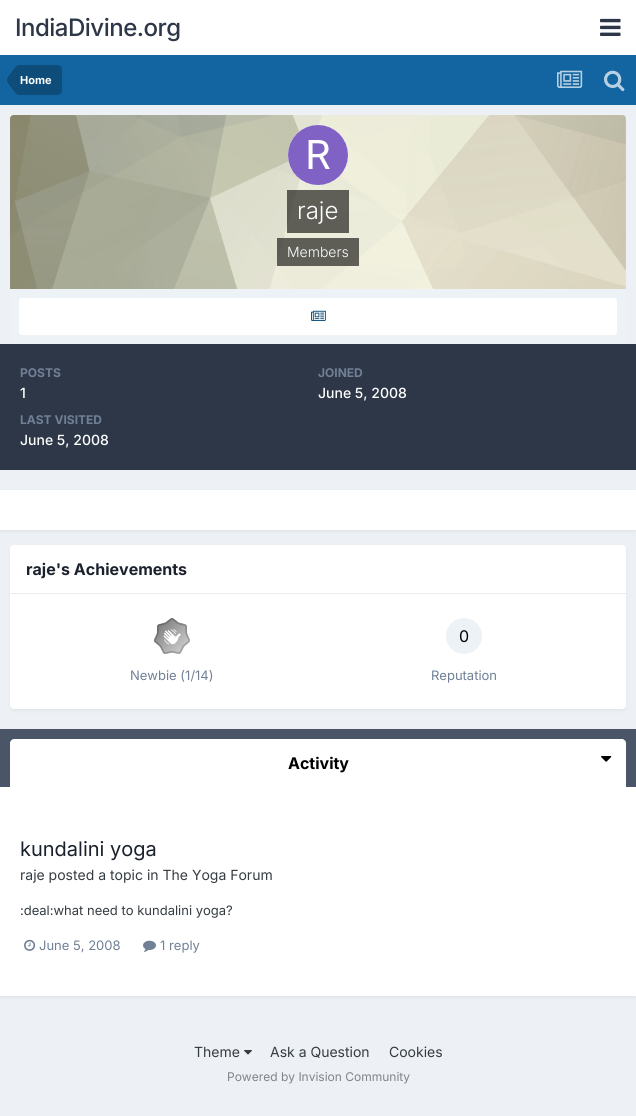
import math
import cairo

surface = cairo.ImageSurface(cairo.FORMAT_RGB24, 636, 1116)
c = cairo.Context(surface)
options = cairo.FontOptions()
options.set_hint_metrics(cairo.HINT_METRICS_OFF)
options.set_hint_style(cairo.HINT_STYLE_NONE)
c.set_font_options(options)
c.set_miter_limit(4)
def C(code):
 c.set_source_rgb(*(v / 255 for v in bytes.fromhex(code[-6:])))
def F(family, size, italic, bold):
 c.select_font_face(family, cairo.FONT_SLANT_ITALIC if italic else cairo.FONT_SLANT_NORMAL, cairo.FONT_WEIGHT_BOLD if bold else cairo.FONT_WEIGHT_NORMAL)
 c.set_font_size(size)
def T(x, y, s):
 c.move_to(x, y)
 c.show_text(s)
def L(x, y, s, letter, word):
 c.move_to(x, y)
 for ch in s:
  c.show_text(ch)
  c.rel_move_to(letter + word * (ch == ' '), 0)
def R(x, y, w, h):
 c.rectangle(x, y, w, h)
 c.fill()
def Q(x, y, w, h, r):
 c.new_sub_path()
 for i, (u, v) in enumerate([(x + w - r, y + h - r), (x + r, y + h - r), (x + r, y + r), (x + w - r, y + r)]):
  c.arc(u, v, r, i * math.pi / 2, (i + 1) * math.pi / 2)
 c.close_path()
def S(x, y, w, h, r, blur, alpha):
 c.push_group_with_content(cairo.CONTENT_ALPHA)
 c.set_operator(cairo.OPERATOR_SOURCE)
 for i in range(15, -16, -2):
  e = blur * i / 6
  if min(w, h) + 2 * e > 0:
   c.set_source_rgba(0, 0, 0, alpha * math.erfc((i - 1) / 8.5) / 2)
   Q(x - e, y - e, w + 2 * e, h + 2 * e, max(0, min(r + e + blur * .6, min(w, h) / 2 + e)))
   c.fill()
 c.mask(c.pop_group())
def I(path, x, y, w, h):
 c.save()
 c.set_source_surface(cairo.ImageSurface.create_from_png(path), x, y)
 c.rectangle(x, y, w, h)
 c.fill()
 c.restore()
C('edf0f4')
c.paint()
C('ffffff')
R(0,0,636,55)
F('Inter Medium',24,0,0)
C('2d3748')
L(15,36,'IndiaDivine.org',-.5,0)
I('1.png',600,18,21,18)
C('1265a1')
R(0,55,636,50)
C('0e4c79')
c.new_path()
c.move_to(20,65)
c.line_to(57,65)
c.curve_to(60,65,62,67,62,70)
c.line_to(62,90)
c.curve_to(62,93,60,95,57,95)
c.line_to(20,95)
c.close_path()
c.fill()
c.new_path()
c.move_to(20,80)
c.line_to(20,95)
c.curve_to(15.5,95,13.5,90.5,11,87)
c.curve_to(9.5,85,7,83,7,80)
c.close_path()
c.move_to(20,80)
c.line_to(7,80)
c.curve_to(7,77,9.5,75,11,73)
c.curve_to(13.5,69.5,15.5,65,20,65)
c.close_path()
c.fill()
F('Inter',11,0,1)
C('ffffff')
T(20,84,'Home')
I('2.png',557,70,26,18)
I('3.png',604,70,21,22)
C('fffc99')
c.new_path()
c.move_to(14,115)
c.line_to(622,115)
c.curve_to(624,115,626,117,626,119)
c.line_to(626,289)
c.line_to(10,289)
c.line_to(10,119)
c.curve_to(10,117,12,115,14,115)
c.close_path()
c.fill()
I('4.png',10,115,616,174)
C('ffffff')
c.arc(318,155,30,0,2 * math.pi)
c.fill()
I('5.png',288,125,60,60)
c.set_source_rgba(0,0,0,0.6)
R(287,190,62,43)
F('Inter Light',24,0,0)
C('ffffff')
T(297,219,'raje')
c.set_source_rgba(0,0,0,0.6)
R(277,238,82,28)
F('Inter Light',14,0,0)
C('ffffff')
T(287,257,'Members')
C('edf2f7')
R(10,289,616,55)
C('ffffff')
Q(18,297,600,39,4)
c.fill()
Q(18.5,297.5,599,38,3.5)
c.set_source_rgba(0.055,0.298,0.475,0.07)
c.set_line_width(1)
c.stroke()
I('6.png',311,310,15,11)
C('2d3748')
R(0,344,636,126)
F('Inter',12,0,1)
C('718096')
T(20,377,'POSTS')
F('Inter Medium',14,0,0)
C('ffffff')
T(20,398,'1')
F('Inter',12,0,1)
C('718096')
T(318,377,'JOINED')
F('Inter Medium',14,0,0)
C('ffffff')
T(318,398,'June 5, 2008')
F('Inter',12,0,1)
C('718096')
T(20,424,'LAST VISITED')
F('Inter Medium',14,0,0)
C('ffffff')
T(20,445,'June 5, 2008')
C('2d3748')
S(1,493,634,38,0,2,.1)
C('ffffff')
R(0,490,636,40)
C('2d3748')
S(11,548,614,162,3,2,.1)
C('ffffff')
Q(10,545,616,164,4)
c.fill()
c.new_path()
c.move_to(14,545)
c.line_to(622,545)
c.curve_to(624,545,626,547,626,549)
c.line_to(626,594)
c.line_to(10,594)
c.line_to(10,549)
c.curve_to(10,547,12,545,14,545)
c.close_path()
c.fill()
C('eaecef')
R(10,593,616,1)
F('Inter',16,0,1)
C('1a202c')
T(26,575,'raje\'s Achievements')
I('7.png',154,618,36,36)
F('Inter',13,0,0)
C('718096')
T(130,680,'Newbie (1/14)')
C('edf2f7')
c.new_path()
c.arc(464,636,18,0,2 * math.pi)
c.fill()
F('Inter',16,0,0)
C('000000')
T(459,642,'0')
F('Inter',13,0,0)
C('718096')
T(431,680,'Reputation')
C('2d3748')
S(1,732,634,265,0,2,.1)
C('ffffff')
R(0,787,636,209)
C('4a5568')
R(0,729,636,58)
C('ffffff')
c.new_path()
c.move_to(14,739)
c.line_to(622,739)
c.curve_to(624,739,626,741,626,743)
c.line_to(626,787)
c.line_to(10,787)
c.line_to(10,743)
c.curve_to(10,741,12,739,14,739)
c.close_path()
c.fill()
F('Inter',16,0,1)
C('000000')
T(288,769,'Activity')
I('8.png',601,756,11,6)
F('Inter',20,0,0)
C('1a202c')
T(20,856,'kundalini yoga')
F('Inter',14,0,0)
C('353c41')
T(20,880,'raje posted a topic in The Yoga Forum')
F('Inter',13,0,0)
T(20,915,':deal:what need to kundalini yoga?')
I('9.png',24,939,12,12)
C('718096')
T(39,950,'June 5, 2008')
I('10.png',143,940,13,12)
T(160,950,'1 reply')
F('Inter',14,0,0)
C('353c41')
T(194,1057,'Theme')
I('11.png',244,1050,8,5)
T(270,1057,'Ask a Question')
T(389,1057,'Cookies')
F('Inter',12,0,0)
C('7f8489')
T(227,1081,'Powered by Invision Community')
surface.write_to_png('o.png')
